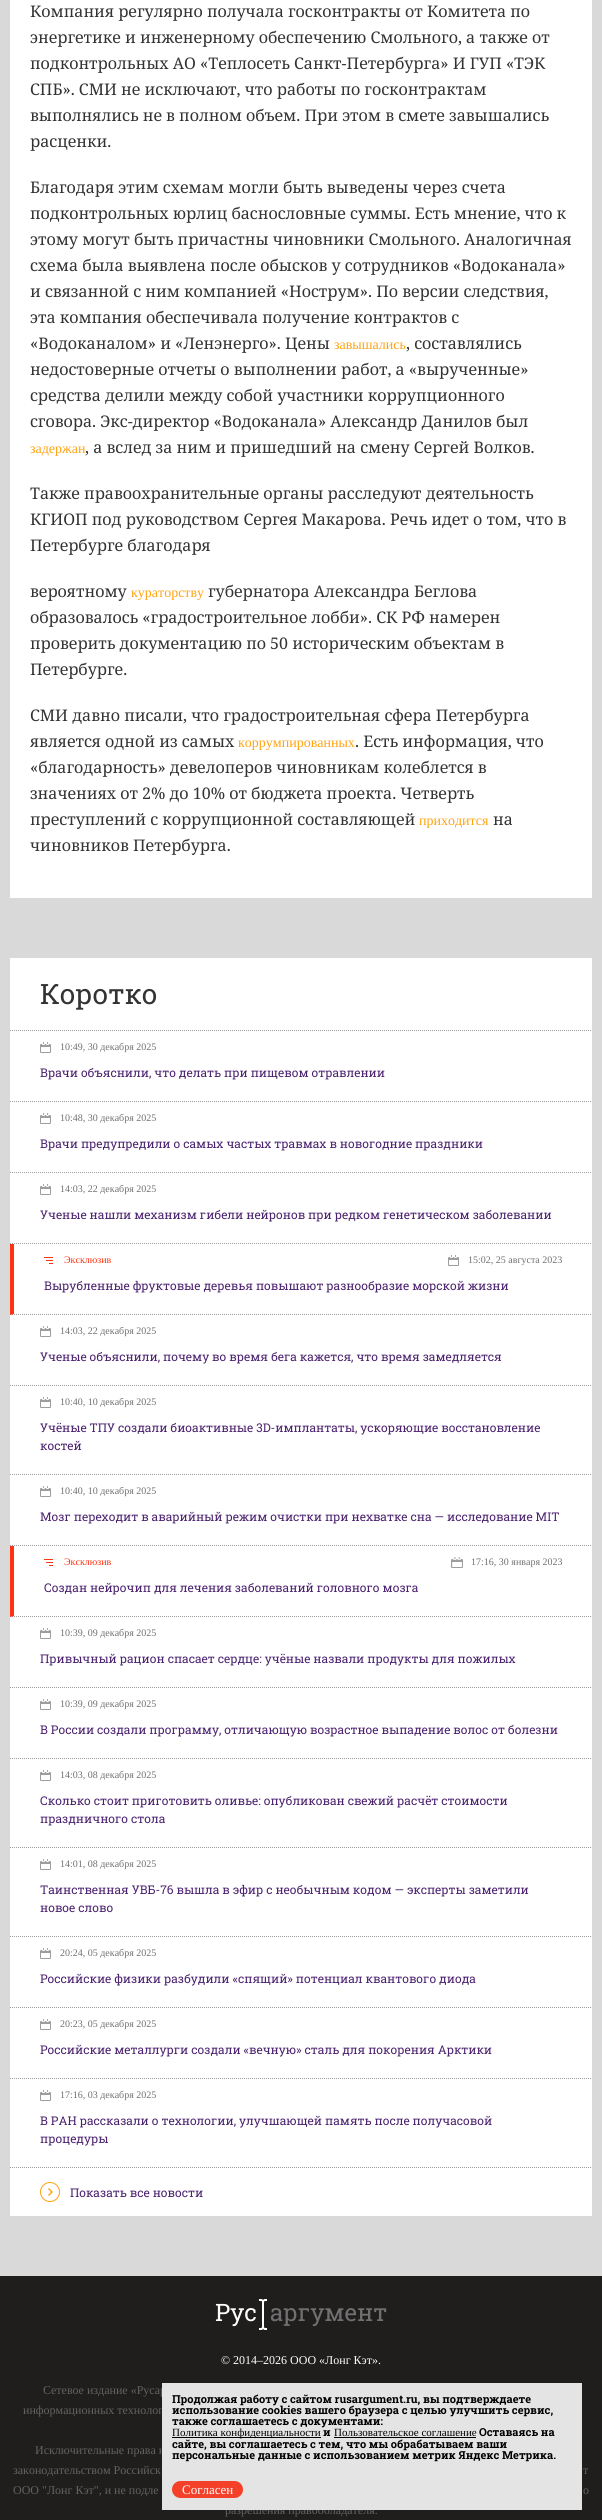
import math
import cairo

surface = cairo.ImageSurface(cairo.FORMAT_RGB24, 602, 2520)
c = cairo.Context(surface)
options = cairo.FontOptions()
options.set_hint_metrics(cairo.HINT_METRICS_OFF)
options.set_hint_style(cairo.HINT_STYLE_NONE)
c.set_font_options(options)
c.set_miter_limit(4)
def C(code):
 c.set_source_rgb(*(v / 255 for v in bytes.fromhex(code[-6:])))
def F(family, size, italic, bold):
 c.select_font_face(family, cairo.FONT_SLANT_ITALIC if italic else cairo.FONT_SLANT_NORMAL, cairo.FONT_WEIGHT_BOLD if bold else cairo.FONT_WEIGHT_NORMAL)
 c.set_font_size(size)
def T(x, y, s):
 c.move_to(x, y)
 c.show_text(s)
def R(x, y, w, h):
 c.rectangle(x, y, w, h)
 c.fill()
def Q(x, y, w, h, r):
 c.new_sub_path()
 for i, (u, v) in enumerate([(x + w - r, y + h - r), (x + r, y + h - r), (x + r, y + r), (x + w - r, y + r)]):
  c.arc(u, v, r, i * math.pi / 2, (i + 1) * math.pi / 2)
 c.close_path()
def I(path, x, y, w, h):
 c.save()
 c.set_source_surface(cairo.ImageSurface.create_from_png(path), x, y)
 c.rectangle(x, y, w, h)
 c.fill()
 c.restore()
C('d9d9d9')
c.paint()
C('ffffff')
R(10,0,582,898)
F('Noto Serif',16,0,0)
C('333333')
T(30,17,'Компания регулярно получала госконтракты от Комитета по')
T(30,43,'энергетике и инженерному обеспечению Смольного, а также от')
T(30,69,'подконтрольных АО «Теплосеть Санкт-Петербурга» И ГУП «ТЭК')
T(30,95,'СПБ». СМИ не исключают, что работы по госконтрактам')
T(30,121,'выполнялись не в полном объем. При этом в смете завышались')
T(30,147,'расценки.')
T(30,193,'Благодаря этим схемам могли быть выведены через счета')
T(30,219,'подконтрольных юрлиц баснословные суммы. Есть мнение, что к')
T(30,245,'этому могут быть причастны чиновники Смольного. Аналогичная')
T(30,271,'схема была выявлена после обысков у сотрудников «Водоканала»')
T(30,297,'и связанной с ним компанией «Нострум». По версии следствия,')
T(30,323,'эта компания обеспечивала получение контрактов с')
T(30,349,'«Водоканалом» и «Ленэнерго». Цены')
F('Liberation Serif',14,0,0)
C('ffa311')
T(334,349,'завышались')
F('Noto Serif',16,0,0)
C('333333')
T(406,349,', составлялись')
T(30,375,'недостоверные отчеты о выполнении работ, а «вырученные»')
T(30,401,'средства делили между собой участники коррупционного')
T(30,427,'сговора. Экс-директор «Водоканала» Александр Данилов был')
F('Liberation Serif',14,0,0)
C('ffa311')
T(30,453,'задержан')
F('Noto Serif',16,0,0)
C('333333')
T(85,453,', а вслед за ним и пришедший на смену Сергей Волков.')
T(30,499,'Также правоохранительные органы расследуют деятельность')
T(30,525,'КГИОП под руководством Сергея Макарова. Речь идет о том, что в')
T(30,551,'Петербурге благодаря')
T(30,597,'вероятному')
F('Liberation Serif',14,0,0)
C('ffa311')
T(131,597,'кураторству')
F('Noto Serif',16,0,0)
C('333333')
T(208,597,'губернатора Александра Беглова')
T(30,623,'образовалось «градостроительное лобби». СК РФ намерен')
T(30,649,'проверить документацию по 50 историческим объектам в')
T(30,675,'Петербурге.')
T(30,721,'СМИ давно писали, что градостроительная сфера Петербурга')
T(30,747,'является одной из самых')
F('Liberation Serif',14,0,0)
C('ffa311')
T(238,747,'коррумпированных')
F('Noto Serif',16,0,0)
C('333333')
T(355,747,'. Есть информация, что')
T(30,773,'«благодарность» девелоперов чиновникам колеблется в')
T(30,799,'значениях от 2% до 10% от бюджета проекта. Четверть')
T(30,825,'преступлений с коррупционной составляющей')
F('Liberation Serif',14,0,0)
C('ffa311')
T(419,825,'приходится')
F('Noto Serif',16,0,0)
C('333333')
T(493,825,'на')
T(30,851,'чиновников Петербурга.')
C('ffffff')
R(10,958,582,1258)
F('Roboto Slab',28,0,0)
C('333333')
T(40,1004,'Коротко')
c.new_path()
c.move_to(10,1030.5)
c.line_to(592,1030.5)
C('9d9d9d')
c.set_line_width(1)
c.set_dash([1,1])
c.stroke()
c.new_path()
c.move_to(10,1101.5)
c.line_to(592,1101.5)
c.stroke()
I('1.png',40,1042,11,11)
F('Liberation Serif',10,0,0)
C('707070')
T(60,1050,'10:49, 30 декабря 2025')
F('Roboto Slab',12,0,0)
C('4c236f')
T(40,1077,'Врачи объяснили, что делать при пищевом отравлении')
c.new_path()
c.move_to(10,1172.5)
c.line_to(592,1172.5)
C('9d9d9d')
c.stroke()
I('1.png',40,1113,11,11)
F('Liberation Serif',10,0,0)
C('707070')
T(60,1121,'10:48, 30 декабря 2025')
F('Roboto Slab',12,0,0)
C('4c236f')
T(40,1148,'Врачи предупредили о самых частых травмах в новогодние праздники')
c.new_path()
c.move_to(10,1243.5)
c.line_to(592,1243.5)
C('9d9d9d')
c.stroke()
I('1.png',40,1184,11,11)
F('Liberation Serif',10,0,0)
C('707070')
T(60,1192,'14:03, 22 декабря 2025')
F('Roboto Slab',12,0,0)
C('4c236f')
T(40,1219,'Ученые нашли механизм гибели нейронов при редком генетическом заболевании')
c.new_path()
c.move_to(10,1314.5)
c.line_to(592,1314.5)
C('9d9d9d')
c.stroke()
C('ff3311')
c.new_path()
c.move_to(10,1315)
c.line_to(10,1244)
c.line_to(14,1244)
c.line_to(14,1314)
c.close_path()
c.fill()
I('2.png',44,1257,9,7)
F('Liberation Serif',10,0,0)
T(64,1263,'Эксклюзив')
I('1.png',448,1255,11,11)
C('707070')
T(468,1263,'15:02, 25 августа 2023')
F('Roboto Slab',12,0,0)
C('4c236f')
T(44,1290,'Вырубленные фруктовые деревья повышают разнообразие морской жизни')
c.new_path()
c.move_to(10,1385.5)
c.line_to(592,1385.5)
C('9d9d9d')
c.stroke()
I('1.png',40,1326,11,11)
F('Liberation Serif',10,0,0)
C('707070')
T(60,1334,'14:03, 22 декабря 2025')
F('Roboto Slab',12,0,0)
C('4c236f')
T(40,1361,'Ученые объяснили, почему во время бега кажется, что время замедляется')
c.new_path()
c.move_to(10,1474.5)
c.line_to(592,1474.5)
C('9d9d9d')
c.stroke()
I('1.png',40,1397,11,11)
F('Liberation Serif',10,0,0)
C('707070')
T(60,1405,'10:40, 10 декабря 2025')
F('Roboto Slab',12,0,0)
C('4c236f')
T(40,1432,'Учёные ТПУ создали биоактивные 3D-имплантаты, ускоряющие восстановление')
T(40,1450,'костей')
c.new_path()
c.move_to(10,1545.5)
c.line_to(592,1545.5)
C('9d9d9d')
c.stroke()
I('1.png',40,1486,11,11)
F('Liberation Serif',10,0,0)
C('707070')
T(60,1494,'10:40, 10 декабря 2025')
F('Roboto Slab',12,0,0)
C('4c236f')
T(40,1521,'Мозг переходит в аварийный режим очистки при нехватке сна — исследование MIT')
c.new_path()
c.move_to(10,1616.5)
c.line_to(592,1616.5)
C('9d9d9d')
c.stroke()
C('ff3311')
c.new_path()
c.move_to(10,1617)
c.line_to(10,1546)
c.line_to(14,1546)
c.line_to(14,1616)
c.close_path()
c.fill()
I('2.png',44,1559,9,7)
F('Liberation Serif',10,0,0)
T(64,1565,'Эксклюзив')
I('3.png',451,1557,12,11)
C('707070')
T(471,1565,'17:16, 30 января 2023')
F('Roboto Slab',12,0,0)
C('4c236f')
T(44,1592,'Создан нейрочип для лечения заболеваний головного мозга')
c.new_path()
c.move_to(10,1687.5)
c.line_to(592,1687.5)
C('9d9d9d')
c.stroke()
I('1.png',40,1628,11,11)
F('Liberation Serif',10,0,0)
C('707070')
T(60,1636,'10:39, 09 декабря 2025')
F('Roboto Slab',12,0,0)
C('4c236f')
T(40,1663,'Привычный рацион спасает сердце: учёные назвали продукты для пожилых')
c.new_path()
c.move_to(10,1758.5)
c.line_to(592,1758.5)
C('9d9d9d')
c.stroke()
I('1.png',40,1699,11,11)
F('Liberation Serif',10,0,0)
C('707070')
T(60,1707,'10:39, 09 декабря 2025')
F('Roboto Slab',12,0,0)
C('4c236f')
T(40,1734,'В России создали программу, отличающую возрастное выпадение волос от болезни')
c.new_path()
c.move_to(10,1847.5)
c.line_to(592,1847.5)
C('9d9d9d')
c.stroke()
I('1.png',40,1770,11,11)
F('Liberation Serif',10,0,0)
C('707070')
T(60,1778,'14:03, 08 декабря 2025')
F('Roboto Slab',12,0,0)
C('4c236f')
T(40,1805,'Сколько стоит приготовить оливье: опубликован свежий расчёт стоимости')
T(40,1823,'праздничного стола')
c.new_path()
c.move_to(10,1936.5)
c.line_to(592,1936.5)
C('9d9d9d')
c.stroke()
I('1.png',40,1859,11,11)
F('Liberation Serif',10,0,0)
C('707070')
T(60,1867,'14:01, 08 декабря 2025')
F('Roboto Slab',12,0,0)
C('4c236f')
T(40,1894,'Таинственная УВБ-76 вышла в эфир с необычным кодом — эксперты заметили')
T(40,1912,'новое слово')
c.new_path()
c.move_to(10,2007.5)
c.line_to(592,2007.5)
C('9d9d9d')
c.stroke()
I('1.png',40,1948,11,11)
F('Liberation Serif',10,0,0)
C('707070')
T(60,1956,'20:24, 05 декабря 2025')
F('Roboto Slab',12,0,0)
C('4c236f')
T(40,1983,'Российские физики разбудили «спящий» потенциал квантового диода')
c.new_path()
c.move_to(10,2078.5)
c.line_to(592,2078.5)
C('9d9d9d')
c.stroke()
I('1.png',40,2019,11,11)
F('Liberation Serif',10,0,0)
C('707070')
T(60,2027,'20:23, 05 декабря 2025')
F('Roboto Slab',12,0,0)
C('4c236f')
T(40,2054,'Российские металлурги создали «вечную» сталь для покорения Арктики')
c.new_path()
c.move_to(10,2167.5)
c.line_to(592,2167.5)
C('9d9d9d')
c.stroke()
I('1.png',40,2090,11,11)
F('Liberation Serif',10,0,0)
C('707070')
T(60,2098,'17:16, 03 декабря 2025')
F('Roboto Slab',12,0,0)
C('4c236f')
T(40,2125,'В РАН рассказали о технологии, улучшающей память после получасовой')
T(40,2143,'процедуры')
I('4.png',40,2182,20,20)
T(70,2197,'Показать все новости')
C('201d1d')
R(0,2276,602,244)
F('Roboto Slab',24,0,0)
C('ffffff')
T(215,2321,'Рус')
I('5.png',259,2299,8,31)
C('707070')
T(270,2321,'аргумент')
F('Liberation Serif',12,0,0)
C('ffffff')
T(221,2364,'© 2014–2026 ООО «Лонг Кэт».')
C('636161')
T(43,2394,'Сетевое издание «Русар')
T(23,2414,'информационных технолог')
T(35,2454,'Исключительные права н')
T(13,2474,'законодательством Российск')
T(583,2474,'т')
T(13,2494,'ООО "Лонг Кэт", и не подле')
T(583,2494,'о')
T(225,2514,'разрешения правообладателя.')
C('e4e4e4')
R(162,2383,420,127)
F('Roboto Slab',11,0,1)
C('000000')
T(172,2403,'Продолжая работу с сайтом rusargument.ru, вы подтверждаете')
T(172,2414,'использование cookies вашего браузера с целью улучшить сервис,')
T(172,2425,'также соглашаетесь с документами:')
R(172,2437,149,1)
F('Liberation Serif',11,0,0)
T(172,2436,'Политика конфиденциальности')
F('Roboto Slab',11,0,1)
T(323,2436,'и')
F('Liberation Serif',11,0,0)
T(334,2436,'Пользовательское соглашение')
R(334,2437,142,1)
F('Roboto Slab',11,0,1)
T(479,2436,'Оставаясь на')
T(172,2448,'сайте, вы соглашаетесь с тем, что мы обрабатываем ваши')
T(172,2459,'персональные данные с использованием метрик Яндекс Метрика.')
C('f44029')
Q(172,2481,71,17,8.5)
c.fill()
F('Liberation Serif',13,0,0)
C('ffffff')
T(182,2494,'Согласен')
surface.write_to_png('o.png')
